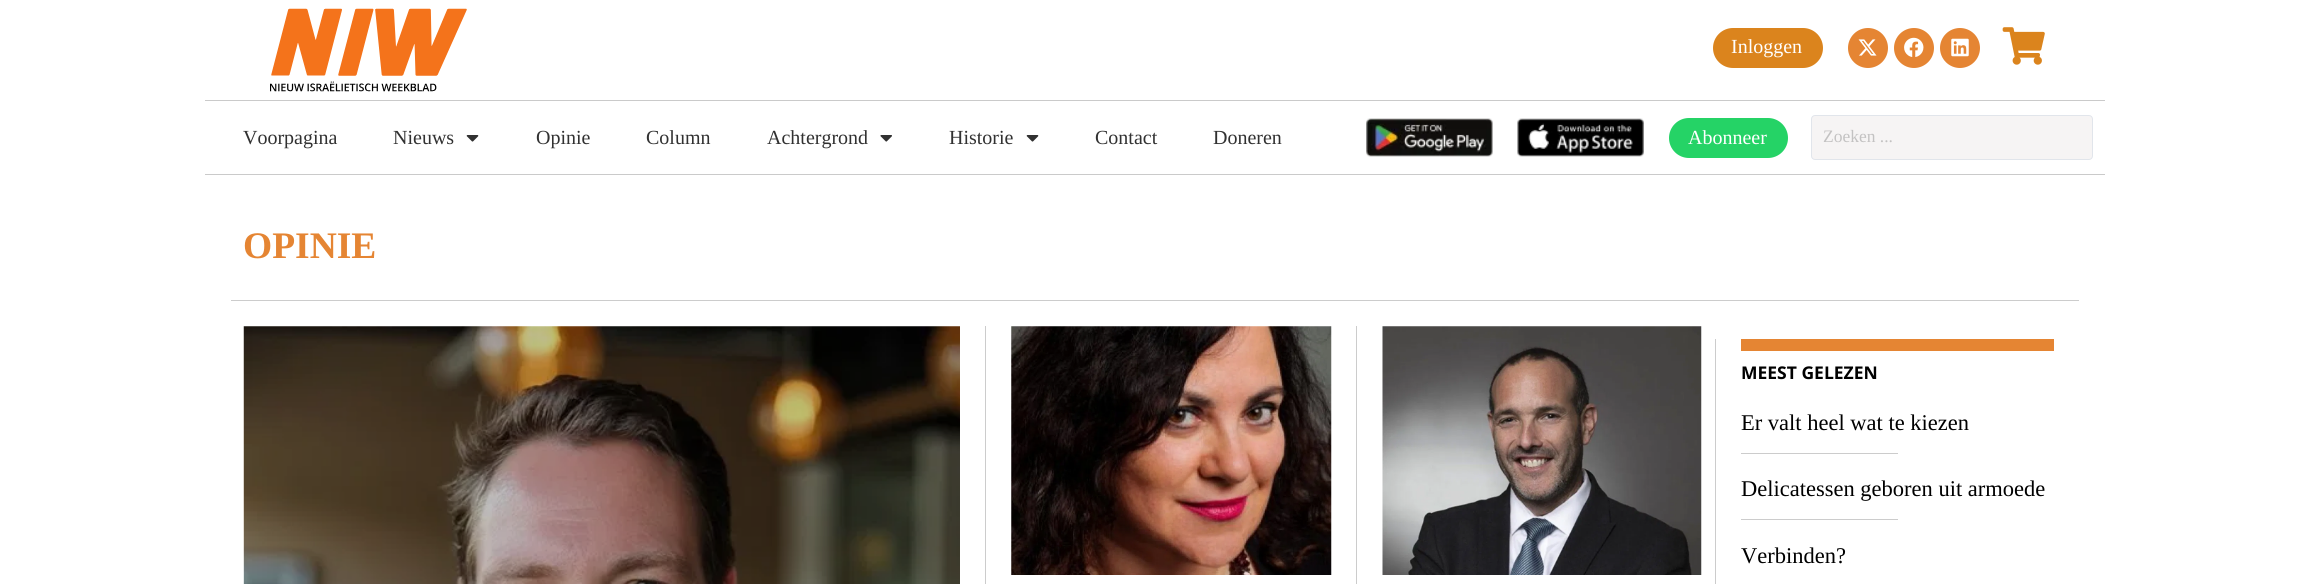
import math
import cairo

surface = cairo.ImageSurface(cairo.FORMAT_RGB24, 2309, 584)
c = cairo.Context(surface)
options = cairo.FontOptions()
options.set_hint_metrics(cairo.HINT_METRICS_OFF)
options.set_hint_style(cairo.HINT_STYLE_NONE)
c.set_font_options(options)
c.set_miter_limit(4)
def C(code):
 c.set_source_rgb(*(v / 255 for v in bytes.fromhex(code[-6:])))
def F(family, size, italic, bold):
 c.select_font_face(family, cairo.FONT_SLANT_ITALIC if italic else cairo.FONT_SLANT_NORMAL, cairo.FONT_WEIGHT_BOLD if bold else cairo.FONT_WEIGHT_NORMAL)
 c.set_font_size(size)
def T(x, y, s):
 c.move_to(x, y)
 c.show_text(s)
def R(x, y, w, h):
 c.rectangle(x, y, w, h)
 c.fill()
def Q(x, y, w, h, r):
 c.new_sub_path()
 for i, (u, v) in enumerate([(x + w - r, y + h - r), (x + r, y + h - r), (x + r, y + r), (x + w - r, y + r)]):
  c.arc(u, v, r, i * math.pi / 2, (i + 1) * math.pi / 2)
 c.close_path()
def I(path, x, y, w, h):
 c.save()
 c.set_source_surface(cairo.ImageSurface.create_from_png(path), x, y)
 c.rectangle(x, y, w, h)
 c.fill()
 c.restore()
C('ffffff')
c.paint()
I('1.png',270,8,197,84)
C('db841d')
Q(1713,28,110,40,20)
c.fill()
F('Tinos',20,0,0)
C('ffffff')
T(1731,53,'Inloggen')
C('e58533')
c.new_path()
c.arc(1868,48,20,0,2 * math.pi)
c.fill()
I('2.png',1858,39,19,17)
c.arc(1914,48,20,0,2 * math.pi)
c.fill()
I('3.png',1904,37,20,20)
c.arc(1960,48,20,0,2 * math.pi)
c.fill()
I('4.png',1951,38,18,19)
I('5.png',2002,27,43,38)
C('cacaca')
R(205,100,1900,1)
R(205,174,1900,1)
C('313131')
T(243,144,'Voorpagina')
T(393,144,'Nieuws')
I('6.png',466,135,13,7)
T(536,144,'Opinie')
T(646,144,'Column')
T(767,144,'Achtergrond')
I('7.png',880,135,12,7)
T(949,144,'Historie')
I('6.png',1026,135,13,7)
T(1095,144,'Contact')
T(1213,144,'Doneren')
I('8.png',1366,118,127,39)
I('9.png',1517,118,127,39)
C('25d366')
Q(1669,118,119,40,20)
c.fill()
C('ffffff')
T(1688,144,'Abonneer')
C('f6f4f4')
Q(1811.5,115.5,281,44,3.5)
c.fill_preserve()
C('e1e5eb')
c.set_line_width(1)
c.stroke()
F('Tinos',17.5,0,0)
C('c3c2c2')
T(1823,142,'Zoeken ...')
C('cccccc')
R(231,300,1848,1)
F('Tinos',37.5,0,1)
C('e58533')
T(243,258,'OPINIE')
I('10.png',243,326,717,258)
C('cccccc')
R(985,326,1,258)
I('11.png',1011,326,321,249)
R(1356,326,1,258)
I('12.png',1382,326,320,249)
R(1715,339,1,245)
C('e58533')
R(1741,339,313,12)
F('Open Sans',17.5,0,1)
C('000000')
T(1741,379,'MEEST GELEZEN')
F('Tinos',22.5,0,0)
T(1741,430,'Er valt heel wat te kiezen')
C('cccccc')
R(1741,453,157,1)
C('000000')
T(1741,496,'Delicatessen geboren uit armoede')
C('cccccc')
R(1741,519,157,1)
C('000000')
T(1741,563,'Verbinden?')
surface.write_to_png('o.png')
